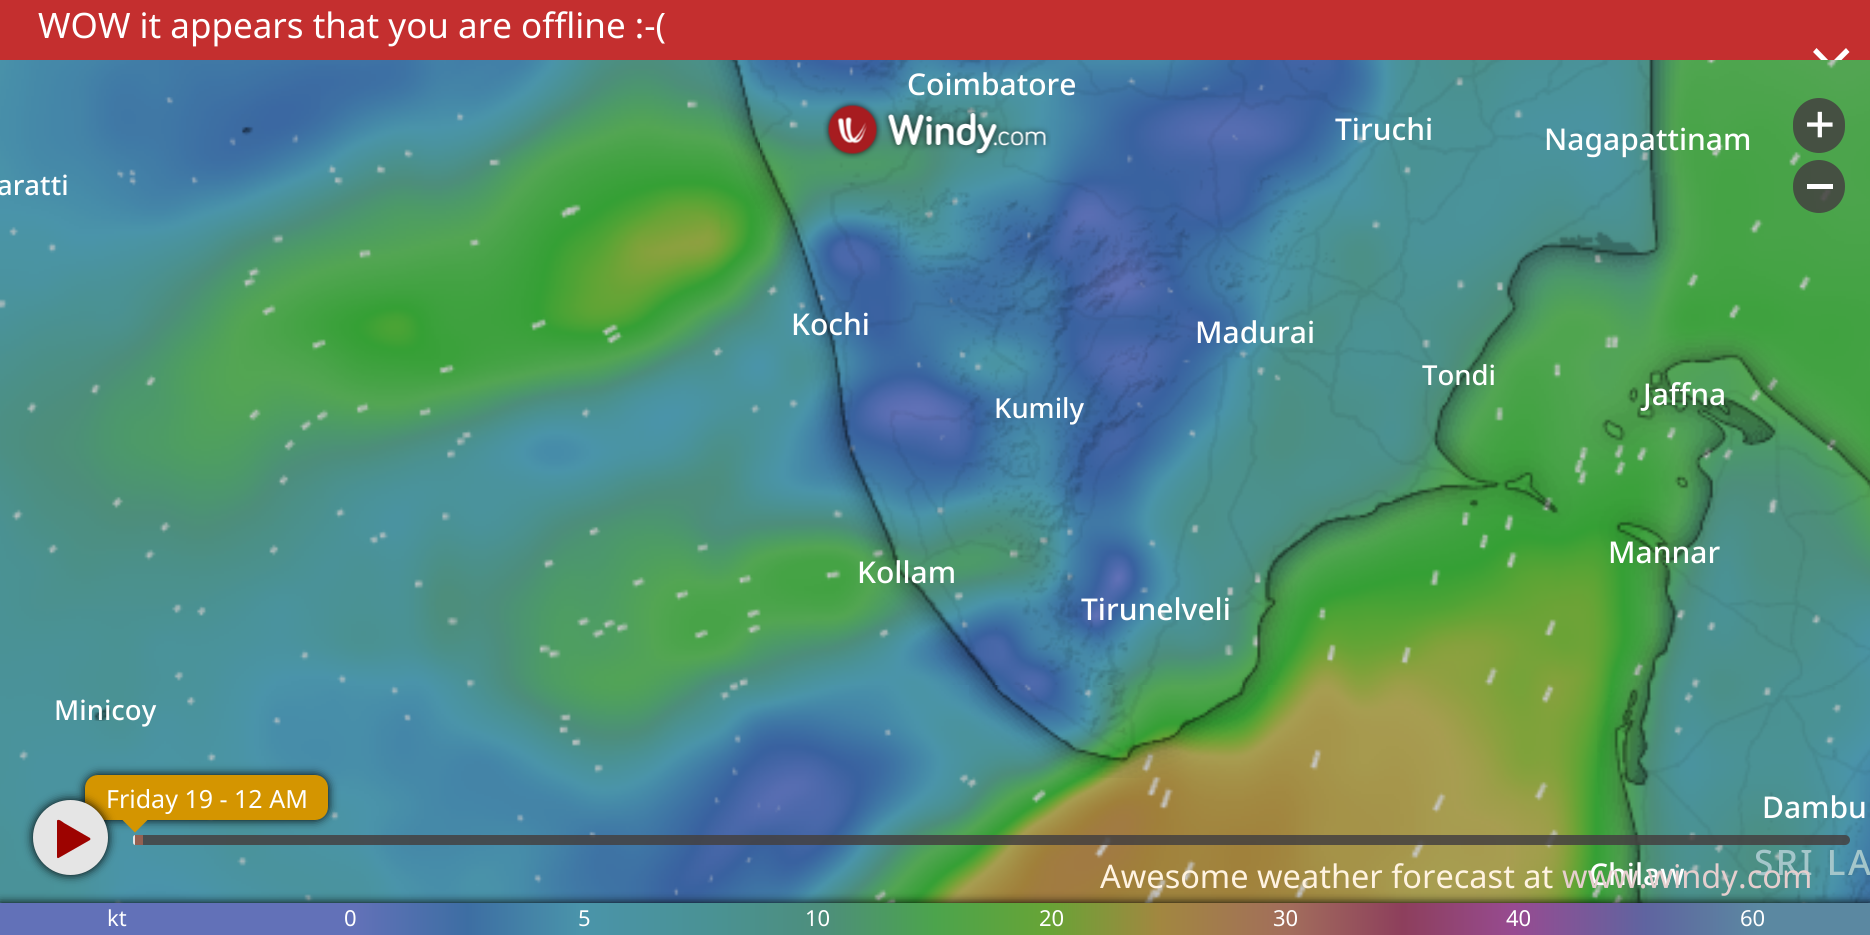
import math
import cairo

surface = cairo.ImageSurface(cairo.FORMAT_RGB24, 1870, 935)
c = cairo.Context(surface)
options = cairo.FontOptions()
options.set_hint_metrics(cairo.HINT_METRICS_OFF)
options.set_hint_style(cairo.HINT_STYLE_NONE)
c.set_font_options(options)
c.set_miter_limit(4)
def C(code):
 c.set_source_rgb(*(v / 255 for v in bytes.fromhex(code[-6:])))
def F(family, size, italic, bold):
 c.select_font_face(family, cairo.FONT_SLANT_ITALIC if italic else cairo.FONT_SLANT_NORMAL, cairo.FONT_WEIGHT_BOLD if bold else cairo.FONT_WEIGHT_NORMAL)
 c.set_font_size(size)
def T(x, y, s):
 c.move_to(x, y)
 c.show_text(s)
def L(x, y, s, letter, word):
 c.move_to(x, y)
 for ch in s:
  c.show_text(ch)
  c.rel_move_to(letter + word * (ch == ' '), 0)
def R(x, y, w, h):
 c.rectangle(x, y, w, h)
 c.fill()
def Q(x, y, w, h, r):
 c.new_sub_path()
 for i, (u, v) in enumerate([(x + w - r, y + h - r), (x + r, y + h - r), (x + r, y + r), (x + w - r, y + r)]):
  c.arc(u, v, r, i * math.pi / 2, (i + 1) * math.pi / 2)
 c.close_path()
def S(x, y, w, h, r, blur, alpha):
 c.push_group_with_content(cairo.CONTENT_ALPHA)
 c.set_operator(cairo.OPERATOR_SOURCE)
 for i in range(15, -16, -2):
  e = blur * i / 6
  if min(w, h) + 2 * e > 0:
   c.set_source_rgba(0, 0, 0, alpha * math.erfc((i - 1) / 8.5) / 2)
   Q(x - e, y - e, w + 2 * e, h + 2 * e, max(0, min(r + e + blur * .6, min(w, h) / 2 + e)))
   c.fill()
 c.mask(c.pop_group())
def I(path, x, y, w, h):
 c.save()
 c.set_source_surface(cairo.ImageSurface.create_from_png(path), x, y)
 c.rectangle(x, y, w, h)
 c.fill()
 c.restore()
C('ffffff')
c.paint()
C('c42f2f')
R(0,0,1870,60)
F('Noto Sans',35,0,0)
C('ffffff')
T(38,38,'WOW it appears that you are offline :-(')
c.save()
c.rectangle(0,0,1870,60)
c.clip()
c.new_path()
c.move_to(1849.5,52)
c.line_to(1846,48)
c.line_to(1831,63)
c.line_to(1816.5,48)
c.line_to(1813,52)
c.line_to(1827.5,66.5)
c.line_to(1813,81)
c.line_to(1816.5,84.5)
c.line_to(1831,70)
c.line_to(1846,84.5)
c.line_to(1849.5,81)
c.line_to(1835,66.5)
c.close_path()
c.fill()
c.restore()
I('1.png',0,60,120,625)
I('2.png',120,60,640,625)
I('3.png',760,60,640,625)
I('4.png',1400,60,470,625)
I('5.png',0,685,120,218)
I('6.png',120,685,640,218)
I('7.png',760,685,640,218)
I('8.png',1400,685,470,218)
I('9.png',0,60,1843,843)
I('10.png',241,60,519,149)
I('11.png',760,60,640,625)
I('12.png',1400,60,470,625)
I('13.png',93,706,18,15)
I('14.png',969,685,299,93)
I('15.png',1597,685,273,218)
F('Noto Sans Medium',27.5,0,0)
T(-3,195,'aratti')
F('Noto Sans Medium',30,0,0)
T(907,95,'Coimbatore')
T(1335,140,'Tiruchi')
T(791,335,'Kochi')
T(1195,343,'Madurai')
F('Noto Sans Medium',27.5,0,0)
T(994,418,'Kumily')
F('Noto Sans Medium',30,0,0)
T(857,583,'Kollam')
T(1081,620,'Tirunelveli')
T(1544,150,'Nagapattinam')
F('Noto Sans Medium',27.5,0,0)
T(1422,385,'Tondi')
F('Noto Sans Medium',30,0,0)
T(1643,405,'Jaffna')
T(1608,563,'Mannar')
F('Noto Sans Medium',27.5,0,0)
T(54,720,'Minicoy')
F('Noto Sans Medium',30,0,0)
T(1762,818,'Dambu')
T(1589,885,'Chilaw')
F('Noto Sans Medium',35,0,0)
C('a4c6ca')
L(1754,875,'SRI LA',2.5,0)
I('16.png',823,100,59,59)
I('17.png',883,109,168,49)
c.set_source_rgba(0.267,0.255,0.255,0.84)
Q(1793,98,52,55,26)
c.fill()
I('18.png',1807,111,26,27)
Q(1793,160,52,53,26)
c.fill()
C('ffffff')
R(1807,184,26,5)
C('000000')
S(85,775,243,45,13,5,1)
C('d49500')
Q(85,775,243,45,13)
c.fill()
c.new_path()
c.move_to(122.5,820)
c.line_to(147.5,820)
c.line_to(135,832.5)
c.close_path()
c.fill()
C('000000')
S(33,800,75,75,37.5,5,1)
C('e5e5e5')
c.arc(70.5,837.5,37.5,0,2 * math.pi)
c.fill()
C('9d0300')
c.new_path()
c.move_to(90.5,839)
c.line_to(90,838)
c.line_to(64,823)
c.curve_to(62,821.5,58.5,818.5,57,820.5)
c.line_to(57,857)
c.curve_to(57,857.5,57.5,858.5,58.5,858)
c.line_to(90,840)
c.close_path()
c.fill()
F('Noto Sans',25,0,0)
C('ffffff')
T(106,808,'Friday 19 - 12 AM')
c.set_source_rgba(0.267,0.255,0.255,0.84)
Q(133,835,1717,10,5)
c.fill()
C('e5e5e5')
c.new_path()
c.move_to(135.5,835)
c.line_to(136,835)
c.line_to(136,845)
c.line_to(135.5,845)
c.curve_to(134,845,133,844,133,842.5)
c.line_to(133,837.5)
c.curve_to(133,836,134,835,135.5,835)
c.close_path()
c.fill()
C('946051')
R(135,835,8,10)
C('000000')
S(0,903,1870,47,0,5,1)
F('Noto Sans',32.5,0,0)
C('fff3e1')
T(1100,888,'Awesome weather forecast at')
C('e6cece')
T(1562,888,'www.windy.com')
gradient = cairo.LinearGradient(0,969,1870,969)
gradient.add_color_stop_rgba(0,0.384,0.443,0.722,1)
gradient.add_color_stop_rgba(.19,0.384,0.443,0.722,1)
gradient.add_color_stop_rgba(.25,0.239,0.431,0.639,1)
gradient.add_color_stop_rgba(.31,0.29,0.58,0.667,1)
gradient.add_color_stop_rgba(.38,0.29,0.573,0.58,1)
gradient.add_color_stop_rgba(.44,0.302,0.557,0.486,1)
gradient.add_color_stop_rgba(.5,0.298,0.643,0.298,1)
gradient.add_color_stop_rgba(.56,0.404,0.643,0.212,1)
gradient.add_color_stop_rgba(.62,0.635,0.529,0.251,1)
gradient.add_color_stop_rgba(.69,0.635,0.427,0.361,1)
gradient.add_color_stop_rgba(.75,0.553,0.247,0.361,1)
gradient.add_color_stop_rgba(.81,0.592,0.294,0.569,1)
gradient.add_color_stop_rgba(.88,0.373,0.392,0.627,1)
gradient.add_color_stop_rgba(.94,0.357,0.533,0.631,1)
gradient.add_color_stop_rgba(1,0.357,0.533,0.631,1)
c.set_source(gradient)
R(0,903,1870,32)
F('Noto Sans',22,0,0)
C('ffffff')
T(107,926,'kt')
T(344,926,'0')
T(578,926,'5')
T(805,926,'10')
T(1039,926,'20')
T(1273,926,'30')
T(1506,926,'40')
T(1740,926,'60')
surface.write_to_png('o.png')
